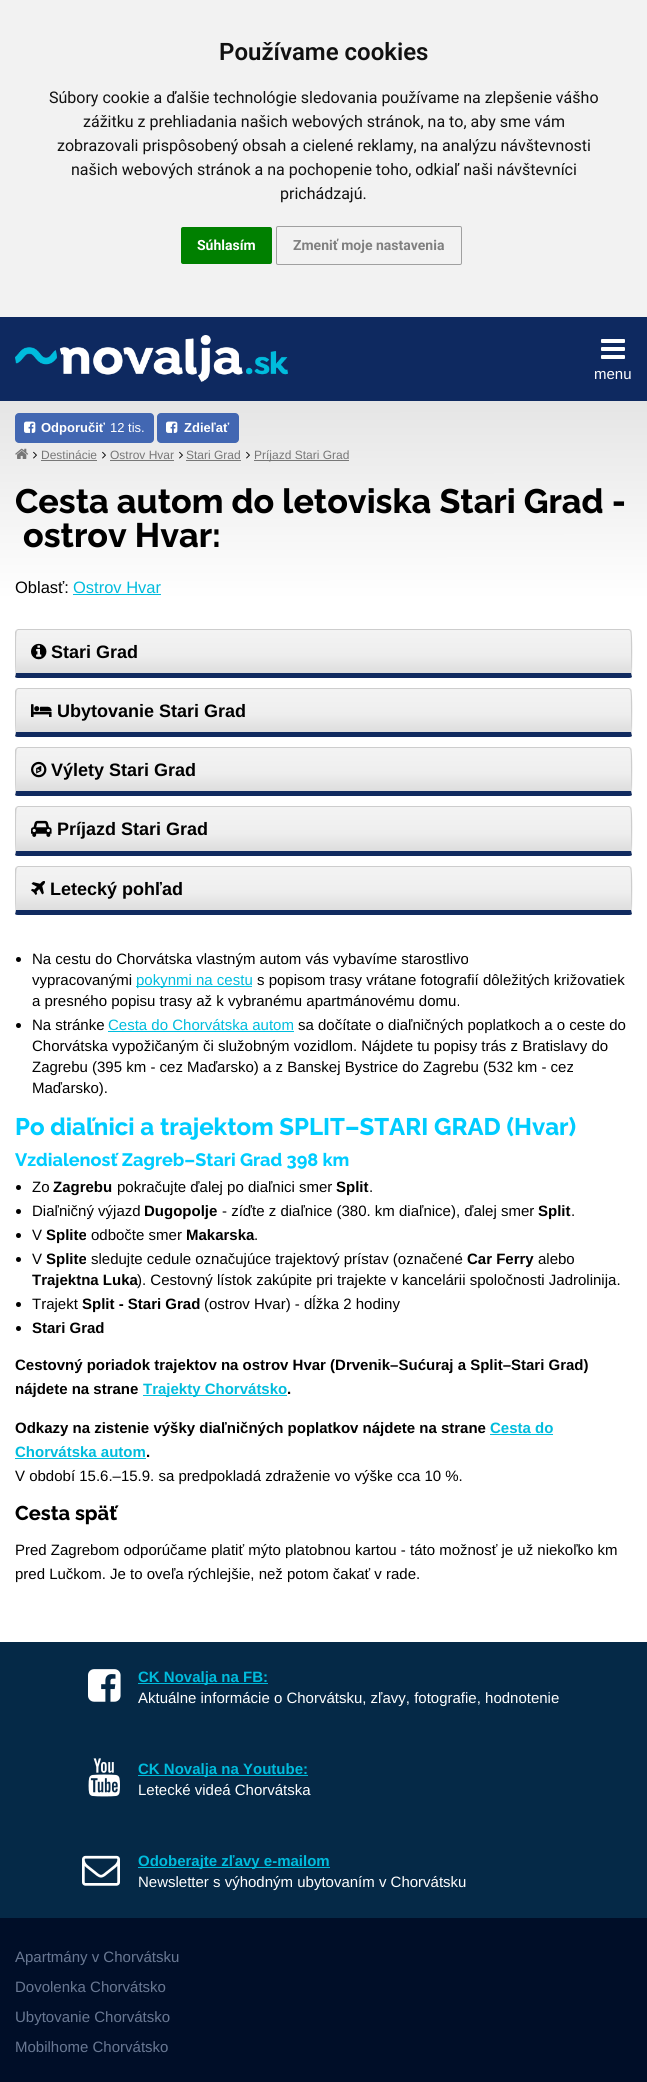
import math
import cairo

surface = cairo.ImageSurface(cairo.FORMAT_RGB24, 647, 2082)
c = cairo.Context(surface)
options = cairo.FontOptions()
options.set_hint_metrics(cairo.HINT_METRICS_OFF)
options.set_hint_style(cairo.HINT_STYLE_NONE)
c.set_font_options(options)
c.set_miter_limit(4)
def C(code):
 c.set_source_rgb(*(v / 255 for v in bytes.fromhex(code[-6:])))
def F(family, size, italic, bold):
 c.select_font_face(family, cairo.FONT_SLANT_ITALIC if italic else cairo.FONT_SLANT_NORMAL, cairo.FONT_WEIGHT_BOLD if bold else cairo.FONT_WEIGHT_NORMAL)
 c.set_font_size(size)
def T(x, y, s):
 c.move_to(x, y)
 c.show_text(s)
def R(x, y, w, h):
 c.rectangle(x, y, w, h)
 c.fill()
def Q(x, y, w, h, r):
 c.new_sub_path()
 for i, (u, v) in enumerate([(x + w - r, y + h - r), (x + r, y + h - r), (x + r, y + r), (x + w - r, y + r)]):
  c.arc(u, v, r, i * math.pi / 2, (i + 1) * math.pi / 2)
 c.close_path()
def I(path, x, y, w, h):
 c.save()
 c.set_source_surface(cairo.ImageSurface.create_from_png(path), x, y)
 c.rectangle(x, y, w, h)
 c.fill()
 c.restore()
C('0e2960')
c.paint()
C('f2f2f2')
R(0,0,647,317)
F('Roboto SemiBold',24,0,0)
C('111111')
T(219,60,'Používame cookies')
F('Roboto',16,0,0)
T(49,103,'Súbory cookie a ďalšie technológie sledovania používame na zlepšenie vášho')
T(83,127,'zážitku z prehliadania našich webových stránok, na to, aby sme vám')
T(57,151,'zobrazovali prispôsobený obsah a cielené reklamy, na analýzu návštevnosti')
T(71,175,'našich webových stránok a na pochopenie toho, odkiaľ naši návštevníci')
T(280,199,'prichádzajú.')
C('008000')
Q(181,227,91,37,2)
c.fill()
F('Roboto',14,0,1)
C('ffffff')
T(197,250,'Súhlasím')
Q(276.5,226.5,185,38,1.5)
C('a0a0a0')
c.set_line_width(1)
c.stroke()
C('808080')
T(293,250,'Zmeniť moje nastavenia')
I('1.png',15,335,273,47)
I('2.png',601,339,24,20)
F('Liberation Sans',15,0,0)
C('ffffff')
T(594,379,'menu')
gradient = cairo.LinearGradient(323,401,324,1642)
gradient.add_color_stop_rgba(0,0.898,0.898,0.898,1)
gradient.add_color_stop_rgba(.16,1,1,1,1)
c.set_source(gradient)
R(0,401,647,1241)
C('4267b2')
Q(15,413,139,30,4)
c.fill()
I('3.png',24,421,12,12)
F('Liberation Sans',13,0,1)
C('ffffff')
T(41,432,'Odporučiť')
F('Liberation Sans',13,0,0)
T(110,432,'12 tis.')
C('4267b2')
Q(157,413,82,30,4)
c.fill()
I('3.png',166,421,12,12)
F('Liberation Sans',13,0,1)
C('ffffff')
T(184,432,'Zdieľať')
I('4.png',15,448,14,11)
I('5.png',33,451,4,8)
F('Liberation Sans',12,0,0)
C('777777')
T(41,459,'Destinácie')
R(41,460,56,1)
I('6.png',102,451,4,8)
T(110,459,'Ostrov Hvar')
R(110,460,64,1)
I('6.png',179,451,4,8)
T(186,459,'Stari Grad')
R(186,460,55,1)
I('6.png',246,451,4,8)
R(254,460,95,1)
T(254,459,'Príjazd Stari Grad')
F('Raleway',34,0,1)
C('000000')
T(15,513,'Cesta autom do letoviska Stari Grad -')
T(23,547,'ostrov Hvar:')
F('Liberation Sans',16.5,0,0)
T(15,593,'Oblasť:')
C('00bcdd')
T(73,593,'Ostrov Hvar')
R(73,594,88,1)
gradient = cairo.LinearGradient(324,673,324,630)
gradient.add_color_stop_rgba(0,0.867,0.867,0.867,1)
gradient.add_color_stop_rgba(.4,0.933,0.933,0.933,1)
gradient.add_color_stop_rgba(1,0.953,0.953,0.953,1)
c.set_source(gradient)
c.new_path()
c.move_to(18,630)
c.line_to(629,630)
c.curve_to(630,630,631,631,631,632)
c.line_to(631,673)
c.line_to(16,673)
c.line_to(16,632)
c.curve_to(16,631,17,630,18,630)
c.close_path()
c.fill()
C('cdcdcd')
c.new_path()
c.move_to(18,629)
c.line_to(16,630)
c.line_to(17,631)
c.line_to(18,630)
c.line_to(629,630)
c.line_to(630,631)
c.line_to(631,630)
c.line_to(629,629)
c.close_path()
c.fill()
c.new_path()
c.move_to(632,675)
c.curve_to(632,670,633,632,631,630)
c.line_to(630,631)
c.curve_to(632,632,630,669,632,677)
c.close_path()
c.fill()
C('112b60')
c.new_path()
c.move_to(18,678)
c.line_to(629,678)
c.curve_to(630,678,631,678,632,677)
c.line_to(631,673)
c.line_to(16,673)
c.line_to(15,677)
c.curve_to(16,678,17,678,18,678)
c.close_path()
c.fill()
C('cdcdcd')
c.new_path()
c.move_to(15,632)
c.line_to(15,677)
c.curve_to(17,669,15,632,17,631)
c.line_to(16,630)
c.close_path()
c.fill()
I('7.png',31,643,16,17)
F('Liberation Sans',18,0,1)
C('000000')
T(51,658,'Stari Grad')
gradient = cairo.LinearGradient(324,732,324,689)
gradient.add_color_stop_rgba(0,0.867,0.867,0.867,1)
gradient.add_color_stop_rgba(.4,0.933,0.933,0.933,1)
gradient.add_color_stop_rgba(1,0.953,0.953,0.953,1)
c.set_source(gradient)
c.new_path()
c.move_to(18,689)
c.line_to(629,689)
c.curve_to(630,689,631,690,631,691)
c.line_to(631,732)
c.line_to(16,732)
c.line_to(16,691)
c.curve_to(16,690,17,689,18,689)
c.close_path()
c.fill()
C('cdcdcd')
c.new_path()
c.move_to(18,688)
c.line_to(16,689)
c.line_to(17,690)
c.line_to(18,689)
c.line_to(629,689)
c.line_to(630,690)
c.line_to(631,689)
c.line_to(629,688)
c.close_path()
c.fill()
c.new_path()
c.move_to(632,734)
c.curve_to(632,729,633,691,631,689)
c.line_to(630,690)
c.curve_to(632,691,630,728,632,736)
c.close_path()
c.fill()
C('112b60')
c.new_path()
c.move_to(18,737)
c.line_to(629,737)
c.curve_to(630,737,631,737,632,736)
c.line_to(631,732)
c.line_to(16,732)
c.line_to(15,736)
c.curve_to(16,737,17,737,18,737)
c.close_path()
c.fill()
C('cdcdcd')
c.new_path()
c.move_to(15,691)
c.line_to(15,736)
c.curve_to(17,728,15,691,17,690)
c.line_to(16,689)
c.close_path()
c.fill()
I('8.png',31,704,21,13)
C('000000')
T(57,717,'Ubytovanie Stari Grad')
gradient = cairo.LinearGradient(324,791,324,748)
gradient.add_color_stop_rgba(0,0.867,0.867,0.867,1)
gradient.add_color_stop_rgba(.4,0.933,0.933,0.933,1)
gradient.add_color_stop_rgba(1,0.953,0.953,0.953,1)
c.set_source(gradient)
c.new_path()
c.move_to(18,748)
c.line_to(629,748)
c.curve_to(630,748,631,749,631,750)
c.line_to(631,791)
c.line_to(16,791)
c.line_to(16,750)
c.curve_to(16,749,17,748,18,748)
c.close_path()
c.fill()
C('cdcdcd')
c.new_path()
c.move_to(18,747)
c.line_to(16,748)
c.line_to(17,749)
c.line_to(18,748)
c.line_to(629,748)
c.line_to(630,749)
c.line_to(631,748)
c.line_to(629,747)
c.close_path()
c.fill()
c.new_path()
c.move_to(632,793)
c.curve_to(632,788,633,750,631,748)
c.line_to(630,749)
c.curve_to(632,750,630,787,632,795)
c.close_path()
c.fill()
C('112b60')
c.new_path()
c.move_to(18,796)
c.line_to(629,796)
c.curve_to(630,796,631,796,632,795)
c.line_to(631,791)
c.line_to(16,791)
c.line_to(15,795)
c.curve_to(16,796,17,796,18,796)
c.close_path()
c.fill()
C('cdcdcd')
c.new_path()
c.move_to(15,750)
c.line_to(15,795)
c.curve_to(17,787,15,750,17,749)
c.line_to(16,748)
c.close_path()
c.fill()
I('9.png',31,761,16,17)
C('000000')
T(51,776,'Výlety Stari Grad')
gradient = cairo.LinearGradient(324,851,324,807)
gradient.add_color_stop_rgba(0,0.867,0.867,0.867,1)
gradient.add_color_stop_rgba(.4,0.933,0.933,0.933,1)
gradient.add_color_stop_rgba(1,0.953,0.953,0.953,1)
c.set_source(gradient)
c.new_path()
c.move_to(18,807)
c.line_to(629,807)
c.curve_to(630,807,631,808,631,809)
c.line_to(631,851)
c.line_to(16,851)
c.line_to(16,809)
c.curve_to(16,808,17,807,18,807)
c.close_path()
c.fill()
C('cdcdcd')
c.new_path()
c.move_to(18,806)
c.line_to(16,807)
c.line_to(17,808)
c.line_to(18,807)
c.line_to(629,807)
c.line_to(630,808)
c.line_to(631,807)
c.line_to(629,806)
c.close_path()
c.fill()
c.new_path()
c.move_to(632,853)
c.curve_to(632,848,633,809,631,807)
c.line_to(630,808)
c.curve_to(632,809,630,847,632,855)
c.close_path()
c.fill()
C('112b60')
c.new_path()
c.move_to(18,856)
c.line_to(629,856)
c.curve_to(630,856,631,856,632,855)
c.line_to(631,851)
c.line_to(16,851)
c.line_to(15,855)
c.curve_to(16,856,17,856,18,856)
c.close_path()
c.fill()
C('cdcdcd')
c.new_path()
c.move_to(15,809)
c.line_to(15,855)
c.curve_to(17,847,15,809,17,808)
c.line_to(16,807)
c.close_path()
c.fill()
I('10.png',31,820,21,17)
C('000000')
T(57,835,'Príjazd Stari Grad')
gradient = cairo.LinearGradient(324,910,324,867)
gradient.add_color_stop_rgba(0,0.867,0.867,0.867,1)
gradient.add_color_stop_rgba(.4,0.933,0.933,0.933,1)
gradient.add_color_stop_rgba(1,0.953,0.953,0.953,1)
c.set_source(gradient)
c.new_path()
c.move_to(18,867)
c.line_to(629,867)
c.curve_to(630,867,631,868,631,869)
c.line_to(631,910)
c.line_to(16,910)
c.line_to(16,869)
c.curve_to(16,868,17,867,18,867)
c.close_path()
c.fill()
C('cdcdcd')
c.new_path()
c.move_to(18,866)
c.line_to(16,867)
c.line_to(17,868)
c.line_to(18,867)
c.line_to(629,867)
c.line_to(630,868)
c.line_to(631,867)
c.line_to(629,866)
c.close_path()
c.fill()
c.new_path()
c.move_to(632,912)
c.curve_to(632,907,633,869,631,867)
c.line_to(630,868)
c.curve_to(632,869,630,906,632,914)
c.close_path()
c.fill()
C('112b60')
c.new_path()
c.move_to(18,915)
c.line_to(629,915)
c.curve_to(630,915,631,915,632,914)
c.line_to(631,910)
c.line_to(16,910)
c.line_to(15,914)
c.curve_to(16,915,17,915,18,915)
c.close_path()
c.fill()
C('cdcdcd')
c.new_path()
c.move_to(15,869)
c.line_to(15,914)
c.curve_to(17,906,15,869,17,868)
c.line_to(16,867)
c.close_path()
c.fill()
I('11.png',31,881,14,14)
C('000000')
T(50,895,'Letecký pohľad')
c.new_path()
c.arc(18.5,959.5,2.5,0,2 * math.pi)
c.fill()
F('Liberation Sans',15,0,0)
T(32,964,'Na cestu do Chorvátska vlastným autom vás vybavíme starostlivo')
T(32,985,'vypracovanými')
C('00bcdd')
R(136,986,116,1)
T(136,985,'pokynmi na cestu')
C('000000')
T(257,985,'s popisom trasy vrátane fotografií dôležitých križovatiek')
T(32,1006,'a presného popisu trasy až k vybranému apartmánovému domu.')
c.new_path()
c.arc(18.5,1025.5,2.5,0,2 * math.pi)
c.fill()
T(32,1030,'Na stránke')
C('00bcdd')
T(108,1030,'Cesta do Chorvátska autom')
R(108,1031,186,1)
C('000000')
T(298,1030,'sa dočítate o diaľničných poplatkoch a o ceste do')
T(32,1051,'Chorvátska vypožičaným či služobným vozidlom. Nájdete tu popisy trás z Bratislavy do')
T(32,1072,'Zagrebu (395 km - cez Maďarsko) a z Banskej Bystrice do Zagrebu (532 km - cez')
T(32,1093,'Maďarsko).')
F('Raleway',24,0,1)
C('00ccff')
T(15,1135,'Po diaľnici a trajektom SPLIT–STARI GRAD (Hvar)')
F('Raleway',18,0,1)
T(15,1166,'Vzdialenosť Zagreb–Stari Grad 398 km')
C('000000')
c.new_path()
c.arc(18.5,1187.5,2.5,0,2 * math.pi)
c.fill()
F('Liberation Sans',15,0,0)
T(32,1192,'Zo')
F('Liberation Sans',15,0,1)
T(53,1192,'Zagrebu')
F('Liberation Sans',15,0,0)
T(117,1192,'pokračujte ďalej po diaľnici smer')
F('Liberation Sans',15,0,1)
T(336,1192,'Split')
F('Liberation Sans',15,0,0)
T(369,1192,'.')
c.new_path()
c.arc(18.5,1211.5,2.5,0,2 * math.pi)
c.fill()
T(32,1216,'Diaľničný výjazd')
F('Liberation Sans',15,0,1)
T(144,1216,'Dugopolje')
F('Liberation Sans',15,0,0)
T(222,1216,'- zíďte z diaľnice (380. km diaľnice), ďalej smer')
F('Liberation Sans',15,0,1)
T(538,1216,'Split')
F('Liberation Sans',15,0,0)
T(571,1216,'.')
c.new_path()
c.arc(18.5,1235.5,2.5,0,2 * math.pi)
c.fill()
T(32,1240,'V')
F('Liberation Sans',15,0,1)
T(46,1240,'Splite')
F('Liberation Sans',15,0,0)
T(91,1240,'odbočte smer')
F('Liberation Sans',15,0,1)
T(186,1240,'Makarska')
F('Liberation Sans',15,0,0)
T(254,1240,'.')
c.new_path()
c.arc(18.5,1259.5,2.5,0,2 * math.pi)
c.fill()
T(32,1264,'V')
F('Liberation Sans',15,0,1)
T(46,1264,'Splite')
F('Liberation Sans',15,0,0)
T(91,1264,'sledujte cedule označujúce trajektový prístav (označené')
F('Liberation Sans',15,0,1)
T(467,1264,'Car Ferry')
F('Liberation Sans',15,0,0)
T(538,1264,'alebo')
F('Liberation Sans',15,0,1)
T(32,1285,'Trajektna Luka')
F('Liberation Sans',15,0,0)
T(137,1285,'). Cestovný lístok zakúpite pri trajekte v kancelárii spoločnosti Jadrolinija.')
c.new_path()
c.arc(18.5,1304.5,2.5,0,2 * math.pi)
c.fill()
T(32,1309,'Trajekt')
F('Liberation Sans',15,0,1)
T(82,1309,'Split - Stari Grad')
F('Liberation Sans',15,0,0)
T(204,1309,'(ostrov Hvar) - dĺžka 2 hodiny')
c.new_path()
c.arc(18.5,1328.5,2.5,0,2 * math.pi)
c.fill()
F('Liberation Sans',15,0,1)
T(32,1333,'Stari Grad')
T(15,1370,'Cestovný poriadok trajektov na ostrov Hvar (Drvenik–Sućuraj a Split–Stari Grad)')
T(15,1394,'nájdete na strane')
C('00bcdd')
R(143,1395,144,1)
T(143,1394,'Trajekty Chorvátsko')
C('000000')
T(287,1394,'.')
T(15,1433,'Odkazy na zistenie výšky diaľničných poplatkov nájdete na strane')
C('00bcdd')
T(490,1433,'Cesta do')
R(490,1434,63,1)
T(15,1457,'Chorvátska autom')
C('000000')
T(146,1457,'.')
C('00bcdd')
R(15,1458,131,1)
F('Liberation Sans',15,0,0)
C('000000')
T(15,1481,'V období 15.6.–15.9. sa predpokladá zdraženie vo výške cca 10 %.')
F('Raleway',20,0,1)
T(15,1520,'Cesta späť')
F('Liberation Sans',15,0,0)
T(15,1555,'Pred Zagrebom odporúčame platiť mýto platobnou kartou - táto možnosť je už niekoľko km')
T(15,1579,'pred Lučkom. Je to oveľa rýchlejšie, než potom čakať v rade.')
C('052947')
R(0,1642,647,276)
I('12.png',88,1669,33,33)
C('00bcdd')
R(138,1683,130,1)
F('Liberation Sans',15,0,1)
T(138,1682,'CK Novalja na FB:')
F('Liberation Sans',15,0,0)
C('ffffff')
T(138,1703,'Aktuálne informácie o Chorvátsku, zľavy, fotografie, hodnotenie')
I('13.png',88,1758,32,39)
C('00bcdd')
R(138,1775,170,1)
F('Liberation Sans',15,0,1)
T(138,1774,'CK Novalja na Youtube:')
F('Liberation Sans',15,0,0)
C('ffffff')
T(138,1795,'Letecké videá Chorvátska')
I('14.png',82,1855,38,31)
C('00bcdd')
R(138,1867,192,1)
F('Liberation Sans',15,0,1)
T(138,1866,'Odoberajte zľavy e-mailom')
F('Liberation Sans',15,0,0)
C('ffffff')
T(138,1887,'Newsletter s výhodným ubytovaním v Chorvátsku')
C('000e28')
R(0,1918,647,164)
C('697893')
T(15,1962,'Apartmány v Chorvátsku')
T(15,1992,'Dovolenka Chorvátsko')
T(15,2022,'Ubytovanie Chorvátsko')
T(15,2052,'Mobilhome Chorvátsko')
surface.write_to_png('o.png')
